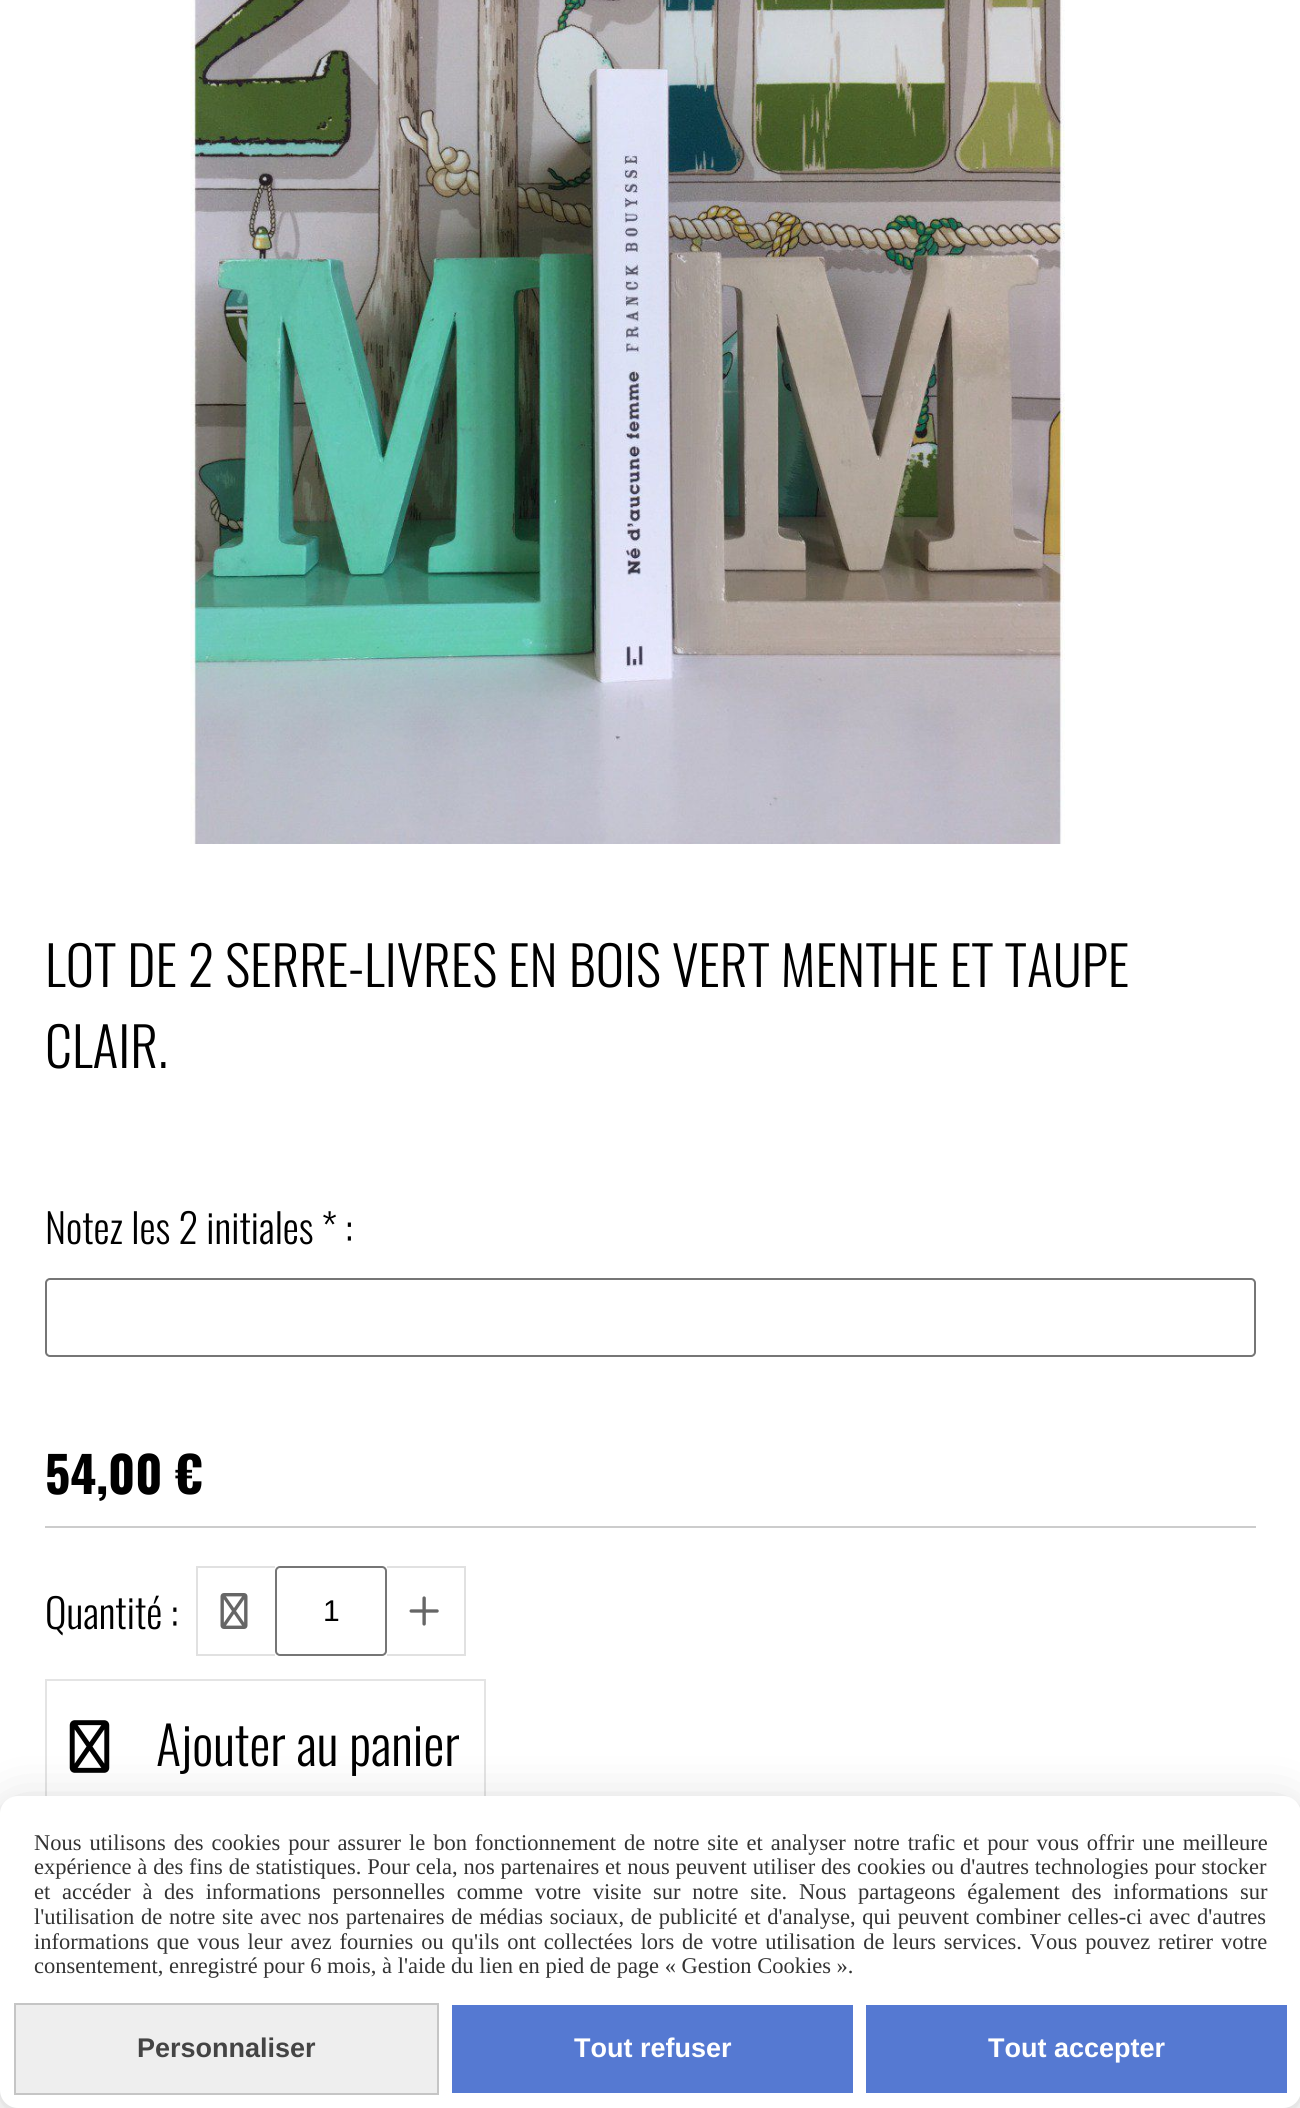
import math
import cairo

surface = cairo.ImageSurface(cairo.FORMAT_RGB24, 1300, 2108)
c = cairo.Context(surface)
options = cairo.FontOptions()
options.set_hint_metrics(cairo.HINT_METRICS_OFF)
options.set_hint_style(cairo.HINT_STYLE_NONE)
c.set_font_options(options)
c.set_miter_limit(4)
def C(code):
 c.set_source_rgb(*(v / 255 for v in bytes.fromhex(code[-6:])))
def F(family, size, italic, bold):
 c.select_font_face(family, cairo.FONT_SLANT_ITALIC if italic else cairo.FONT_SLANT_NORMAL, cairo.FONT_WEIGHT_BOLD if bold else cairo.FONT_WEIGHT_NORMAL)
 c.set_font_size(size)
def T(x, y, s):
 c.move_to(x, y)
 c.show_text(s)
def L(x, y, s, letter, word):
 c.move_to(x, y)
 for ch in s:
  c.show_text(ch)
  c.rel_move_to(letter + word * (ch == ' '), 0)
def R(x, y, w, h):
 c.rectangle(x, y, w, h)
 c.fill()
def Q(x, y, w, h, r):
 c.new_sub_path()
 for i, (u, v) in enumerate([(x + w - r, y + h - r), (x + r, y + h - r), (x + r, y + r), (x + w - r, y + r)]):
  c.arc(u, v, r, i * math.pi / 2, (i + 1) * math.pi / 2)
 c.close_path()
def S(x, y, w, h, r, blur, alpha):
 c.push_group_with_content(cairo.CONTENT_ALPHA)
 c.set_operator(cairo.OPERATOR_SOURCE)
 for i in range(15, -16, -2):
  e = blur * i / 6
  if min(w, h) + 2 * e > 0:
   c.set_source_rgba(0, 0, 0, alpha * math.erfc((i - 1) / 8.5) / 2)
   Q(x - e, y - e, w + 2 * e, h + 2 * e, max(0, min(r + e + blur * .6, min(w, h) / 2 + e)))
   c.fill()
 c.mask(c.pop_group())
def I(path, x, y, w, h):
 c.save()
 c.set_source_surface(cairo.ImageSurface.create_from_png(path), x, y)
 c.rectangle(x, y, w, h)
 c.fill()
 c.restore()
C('ffffff')
c.paint()
I('1.png',190,0,875,844)
F('Oswald Light',54,0,0)
C('000000')
T(45,987,'LOT DE 2 SERRE-LIVRES EN BOIS VERT MENTHE ET TAUPE')
T(45,1068,'CLAIR.')
F('Oswald Light',40.5,0,0)
T(45,1244,'Notez les 2 initiales * :')
Q(46,1279,1209,77,4)
C('767676')
c.stroke()
C('cccccc')
R(45,1526,1211,2)
F('Oswald',49.5,0,1)
C('000000')
T(45,1494,'54,00 €')
F('Oswald Light',40.5,0,0)
T(45,1629,'Quantité :')
C('e1e1e1')
R(196,1566,79,2)
R(196,1654,79,2)
R(196,1566,2,90)
I('2.png',220,1593,28,36)
Q(276,1567,110,88,4)
C('767676')
c.stroke()
F('Liberation Sans',30,0,0)
C('000000')
T(323,1621,'1')
C('e1e1e1')
R(387,1566,79,2)
R(464,1566,2,90)
R(387,1654,79,2)
I('3.png',409,1596,30,30)
c.rectangle(46,1680,439,126)
C('e4e4e4')
c.stroke()
I('4.png',69,1720,41,53)
F('Oswald Light',52.5,0,0)
C('000000')
T(156,1766,'Ajouter au panier')
C('000000')
S(0,1800,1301,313,18,7,.05)
S(0,1805,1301,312,18,27,.15)
C('ffffff')
Q(0,1796,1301,312,18)
c.fill()
F('Liberation Serif',22.5,0,0)
C('333333')
L(34,1850,'Nous utilisons des cookies pour assurer le bon fonctionnement de notre site et analyser notre trafic et pour vous offrir une meilleure',0,2.3)
L(34,1874,'expérience à des fins de statistiques. Pour cela, nos partenaires et nous peuvent utiliser des cookies ou d\'autres technologies pour stocker',0,.25)
L(34,1899,'et accéder à des informations personnelles comme votre visite sur notre site. Nous partageons également des informations sur',0,6.1)
L(34,1924,'l\'utilisation de notre site avec nos partenaires de médias sociaux, de publicité et d\'analyse, qui peuvent combiner celles-ci avec d\'autres',0,1.1)
L(34,1949,'informations que vous leur avez fournies ou qu\'ils ont collectées lors de votre utilisation de leurs services. Vous pouvez retirer votre',0,2.25)
T(34,1973,'consentement, enregistré pour 6 mois, à l\'aide du lien en pied de page « Gestion Cookies ».')
C('eeeeee')
c.rectangle(15,2004,423,90)
c.fill_preserve()
C('c5c5c5')
c.stroke()
F('Liberation Sans',27,0,1)
C('444444')
T(137,2057,'Personnaliser')
C('5579d2')
R(452,2005,401,88)
C('ffffff')
T(574,2057,'Tout refuser')
C('5579d2')
R(866,2005,421,88)
C('ffffff')
T(988,2057,'Tout accepter')
surface.write_to_png('o.png')
